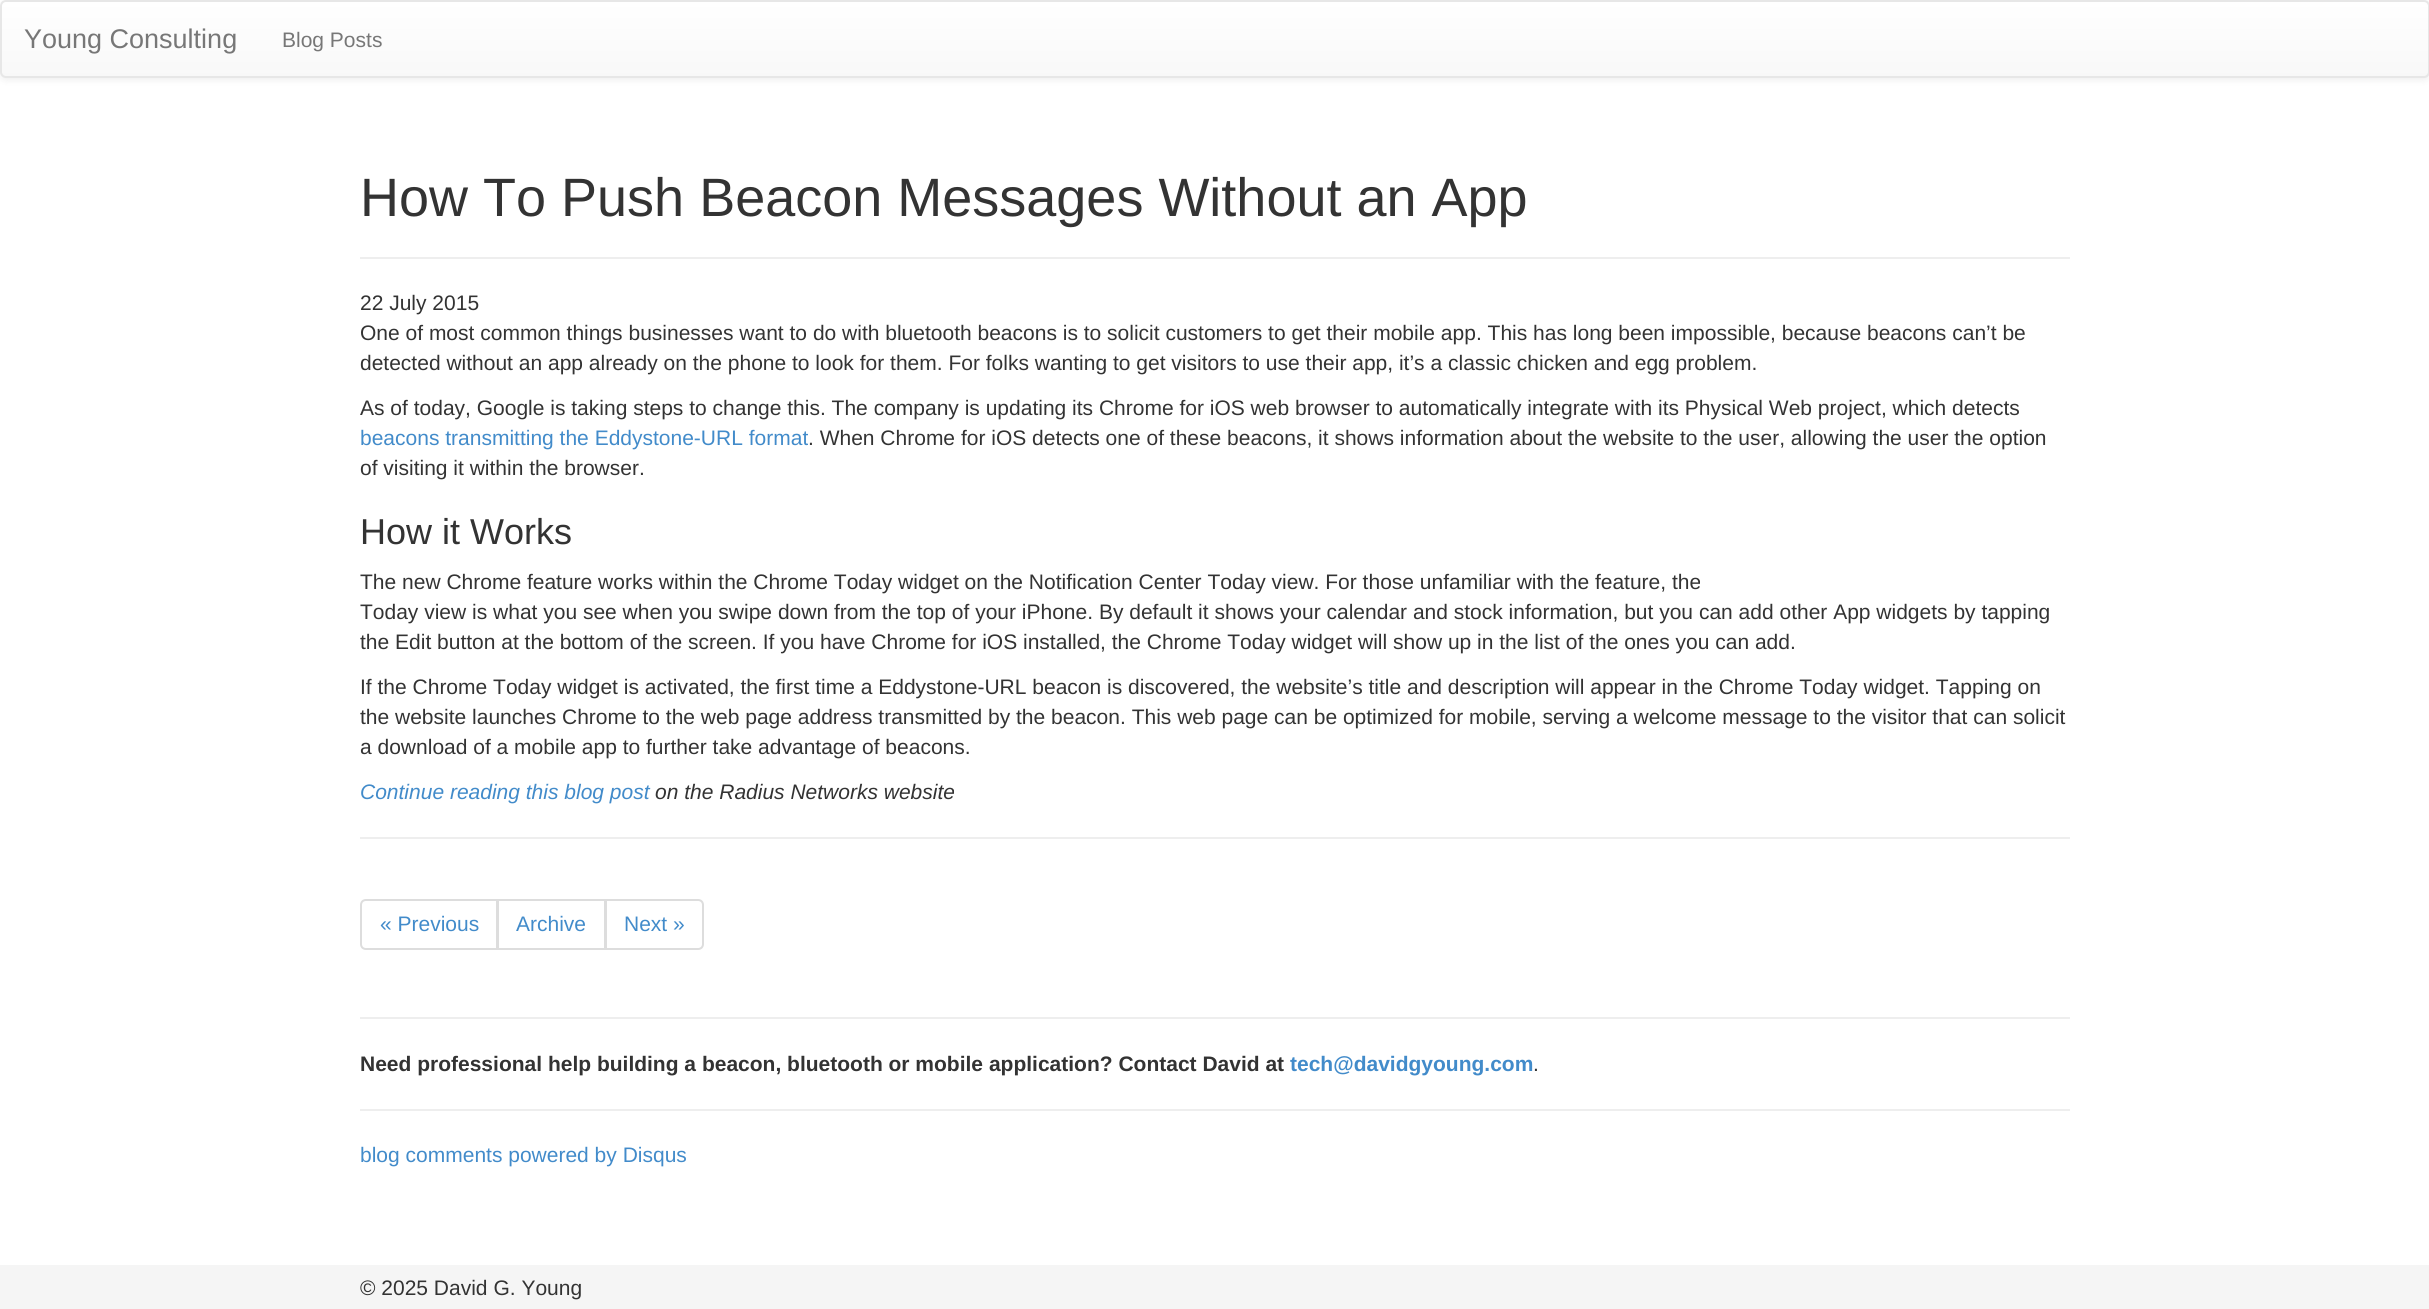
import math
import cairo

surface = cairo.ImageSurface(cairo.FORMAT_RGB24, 2429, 1309)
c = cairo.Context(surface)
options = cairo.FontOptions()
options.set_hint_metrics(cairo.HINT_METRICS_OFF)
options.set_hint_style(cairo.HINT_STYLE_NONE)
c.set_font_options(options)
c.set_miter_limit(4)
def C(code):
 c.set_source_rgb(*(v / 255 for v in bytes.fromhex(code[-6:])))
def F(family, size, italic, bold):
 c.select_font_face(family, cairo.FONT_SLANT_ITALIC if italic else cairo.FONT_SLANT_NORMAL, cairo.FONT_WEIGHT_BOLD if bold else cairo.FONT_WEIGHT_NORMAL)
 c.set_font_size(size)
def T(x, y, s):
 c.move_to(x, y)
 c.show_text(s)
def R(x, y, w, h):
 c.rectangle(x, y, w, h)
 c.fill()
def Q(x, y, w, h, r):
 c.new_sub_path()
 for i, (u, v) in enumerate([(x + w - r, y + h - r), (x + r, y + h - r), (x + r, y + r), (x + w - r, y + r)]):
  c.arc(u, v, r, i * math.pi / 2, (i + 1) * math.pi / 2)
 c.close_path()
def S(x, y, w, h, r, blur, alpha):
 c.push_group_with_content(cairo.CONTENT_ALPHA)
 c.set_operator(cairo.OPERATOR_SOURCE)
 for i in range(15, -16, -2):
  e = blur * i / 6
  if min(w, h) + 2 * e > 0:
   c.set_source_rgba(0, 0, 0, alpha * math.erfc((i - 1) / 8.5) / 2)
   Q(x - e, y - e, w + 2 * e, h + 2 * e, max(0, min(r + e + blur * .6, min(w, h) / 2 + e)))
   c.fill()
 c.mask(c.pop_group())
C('ffffff')
c.paint()
C('000000')
S(0,2,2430,78,6,4,.07)
c.save()
Q(0,0,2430,78,6)
c.clip()
gradient = cairo.LinearGradient(1215,1.5,1215,77)
gradient.add_color_stop_rgba(0,1,1,1,1)
gradient.add_color_stop_rgba(1,0.973,0.973,0.973,1)
c.set_source(gradient)
R(0,2,2429,75)
c.restore()
Q(1,1,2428,76,5)
C('e7e7e7')
c.stroke()
F('Liberation Sans',27,0,0)
C('777777')
T(24,48,'Young Consulting')
F('Liberation Sans',21,0,0)
T(282,47,'Blog Posts')
C('eeeeee')
R(360,257,1710,2)
F('Liberation Sans',54,0,0)
C('333333')
T(360,216,'How To Push Beacon Messages Without an App')
F('Liberation Sans',21,0,0)
T(360,310,'22 July 2015')
T(360,340,'One of most common things businesses want to do with bluetooth beacons is to solicit customers to get their mobile app. This has long been impossible, because beacons can’t be')
T(360,370,'detected without an app already on the phone to look for them. For folks wanting to get visitors to use their app, it’s a classic chicken and egg problem.')
T(360,415,'As of today, Google is taking steps to change this. The company is updating its Chrome for iOS web browser to automatically integrate with its Physical Web project, which detects')
C('428bca')
T(360,445,'beacons transmitting the Eddystone-URL format')
C('333333')
T(808,445,'. When Chrome for iOS detects one of these beacons, it shows information about the website to the user, allowing the user the option')
T(360,475,'of visiting it within the browser.')
F('Liberation Sans',36,0,0)
T(360,544,'How it Works')
F('Liberation Sans',21,0,0)
T(360,589,'The new Chrome feature works within the Chrome Today widget on the Notification Center Today view. For those unfamiliar with the feature, the')
T(360,619,'Today view is what you see when you swipe down from the top of your iPhone. By default it shows your calendar and stock information, but you can add other App widgets by tapping')
T(360,649,'the Edit button at the bottom of the screen. If you have Chrome for iOS installed, the Chrome Today widget will show up in the list of the ones you can add.')
T(360,694,'If the Chrome Today widget is activated, the first time a Eddystone-URL beacon is discovered, the website’s title and description will appear in the Chrome Today widget. Tapping on')
T(360,724,'the website launches Chrome to the web page address transmitted by the beacon. This web page can be optimized for mobile, serving a welcome message to the visitor that can solicit')
T(360,754,'a download of a mobile app to further take advantage of beacons.')
F('Liberation Sans',21,1,0)
C('428bca')
T(360,799,'Continue reading this blog post')
C('333333')
T(655,799,'on the Radius Networks website')
C('eeeeee')
R(360,837,1710,2)
c.new_path()
c.move_to(366,900)
c.line_to(497,900)
c.line_to(497,949)
c.line_to(366,949)
c.curve_to(363,949,361,947,361,944)
c.line_to(361,905)
c.curve_to(361,902,363,900,366,900)
c.close_path()
C('dddddd')
c.stroke()
F('Liberation Sans',21,0,0)
C('428bca')
T(380,931,'« Previous')
c.rectangle(498,900,107,49)
C('dddddd')
c.stroke()
C('428bca')
T(516,931,'Archive')
C('ffffff')
c.new_path()
c.move_to(606,900)
c.line_to(698,900)
c.curve_to(701,900,703,902,703,905)
c.line_to(703,944)
c.curve_to(703,947,701,949,698,949)
c.line_to(606,949)
c.close_path()
c.fill_preserve()
C('dddddd')
c.stroke()
C('428bca')
T(624,931,'Next »')
C('eeeeee')
R(360,1017,1710,2)
F('Liberation Sans',21,0,1)
C('333333')
T(360,1071,'Need professional help building a beacon, bluetooth or mobile application? Contact David at')
C('428bca')
T(1290,1071,'tech@davidgyoung.com')
F('Liberation Sans',21,0,0)
C('333333')
T(1533,1071,'.')
C('eeeeee')
R(360,1109,1710,2)
C('428bca')
T(360,1162,'blog comments powered by Disqus')
C('f5f5f5')
R(0,1265,2429,44)
C('333333')
T(360,1295,'© 2025 David G. Young')
surface.write_to_png('o.png')
